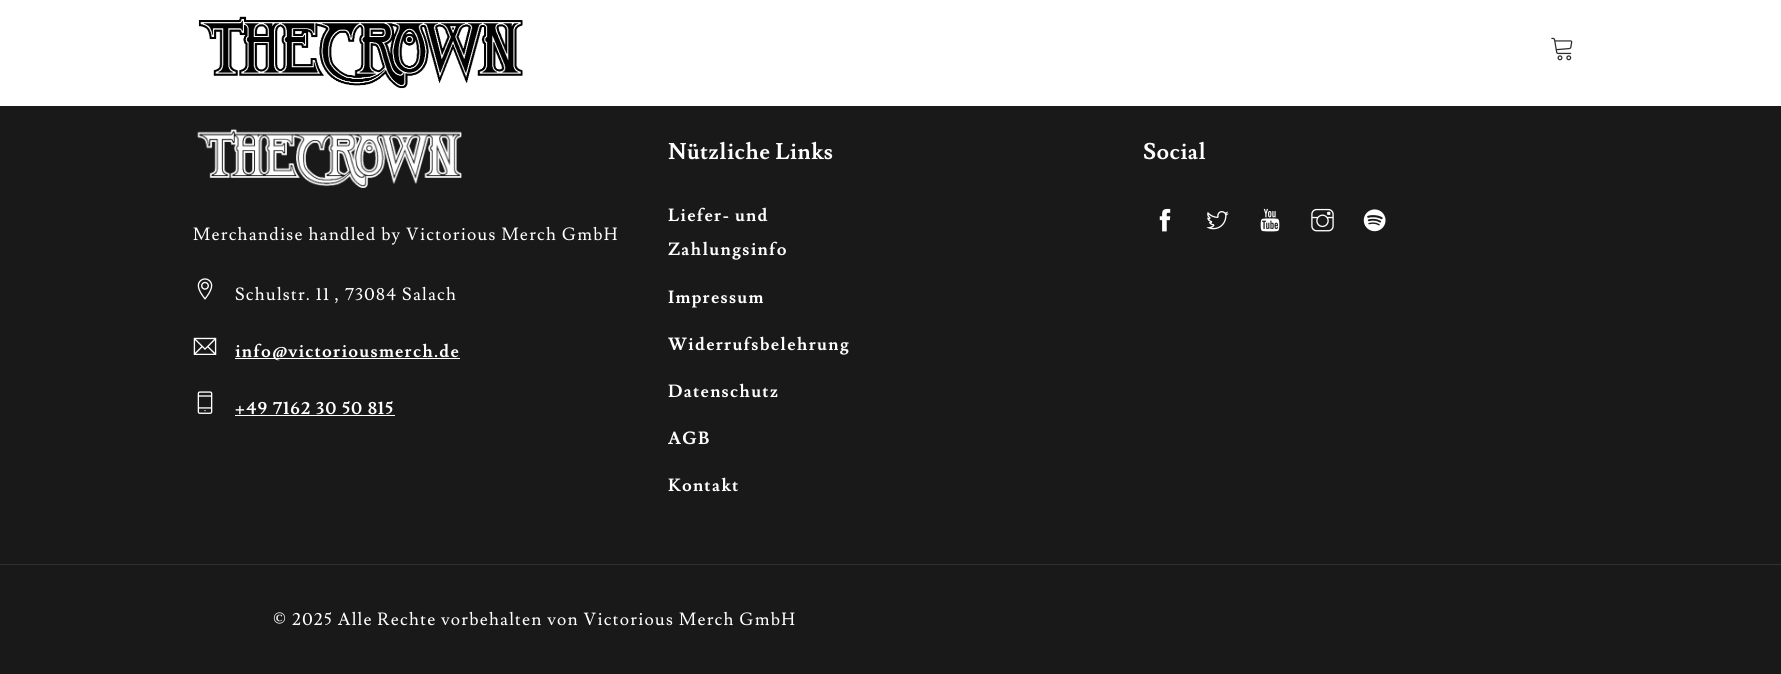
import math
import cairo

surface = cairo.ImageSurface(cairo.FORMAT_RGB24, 1781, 674)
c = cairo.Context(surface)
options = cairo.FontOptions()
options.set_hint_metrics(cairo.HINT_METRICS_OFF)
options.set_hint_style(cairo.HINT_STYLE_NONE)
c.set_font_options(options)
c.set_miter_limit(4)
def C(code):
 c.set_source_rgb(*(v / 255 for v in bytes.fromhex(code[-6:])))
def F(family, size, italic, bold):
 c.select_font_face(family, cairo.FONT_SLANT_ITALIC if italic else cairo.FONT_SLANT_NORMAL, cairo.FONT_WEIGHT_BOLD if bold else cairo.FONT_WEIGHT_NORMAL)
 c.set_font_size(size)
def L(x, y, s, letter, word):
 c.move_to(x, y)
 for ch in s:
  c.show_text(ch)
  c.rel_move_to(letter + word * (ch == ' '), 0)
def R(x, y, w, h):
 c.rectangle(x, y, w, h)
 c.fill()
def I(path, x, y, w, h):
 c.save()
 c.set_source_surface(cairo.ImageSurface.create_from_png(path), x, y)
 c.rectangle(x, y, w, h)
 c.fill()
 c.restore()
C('191919')
c.paint()
C('ffffff')
R(0,0,1781,106)
I('1.png',198,16,325,73)
I('2.png',1551,37,22,24)
F('Lusitana',22.5,0,1)
L(668,159,'Nützliche Links',.4,0)
F('Lusitana',17.5,0,1)
L(668,221,'Liefer- und',1.25,0)
L(668,255,'Zahlungsinfo',1.25,0)
L(668,303,'Impressum',1.25,0)
L(668,350,'Widerrufsbelehrung',1.25,0)
L(668,397,'Datenschutz',1.25,0)
L(668,444,'AGB',1.25,0)
L(668,491,'Kontakt',1.25,0)
F('Lusitana',22.5,0,1)
L(1143,159,'Social',.4,0)
I('3.png',1159,208,12,24)
I('4.png',1206,211,23,19)
I('5.png',1260,208,20,24)
I('6.png',1311,208,23,24)
I('7.png',1363,209,23,23)
I('8.png',197,129,265,59)
F('Lusitana',17.5,0,0)
L(193,240,'Merchandise handled by Victorious Merch GmbH',1.25,0)
I('9.png',197,278,16,22)
L(235,300,'Schulstr. 11 , 73084 Salach',1.25,0)
I('10.png',193,337,24,18)
R(235,358,225,1)
F('Lusitana',17.5,0,1)
L(235,357,'info@victoriousmerch.de',1.25,0)
I('11.png',197,391,16,23)
L(235,414,'+49 7162 30 50 815',1.25,0)
R(235,415,160,1)
C('303030')
R(0,564,1781,1)
F('Lusitana',17.5,0,0)
C('ffffff')
L(273,625,'© 2025 Alle Rechte vorbehalten von Victorious Merch GmbH',1.25,0)
surface.write_to_png('o.png')
